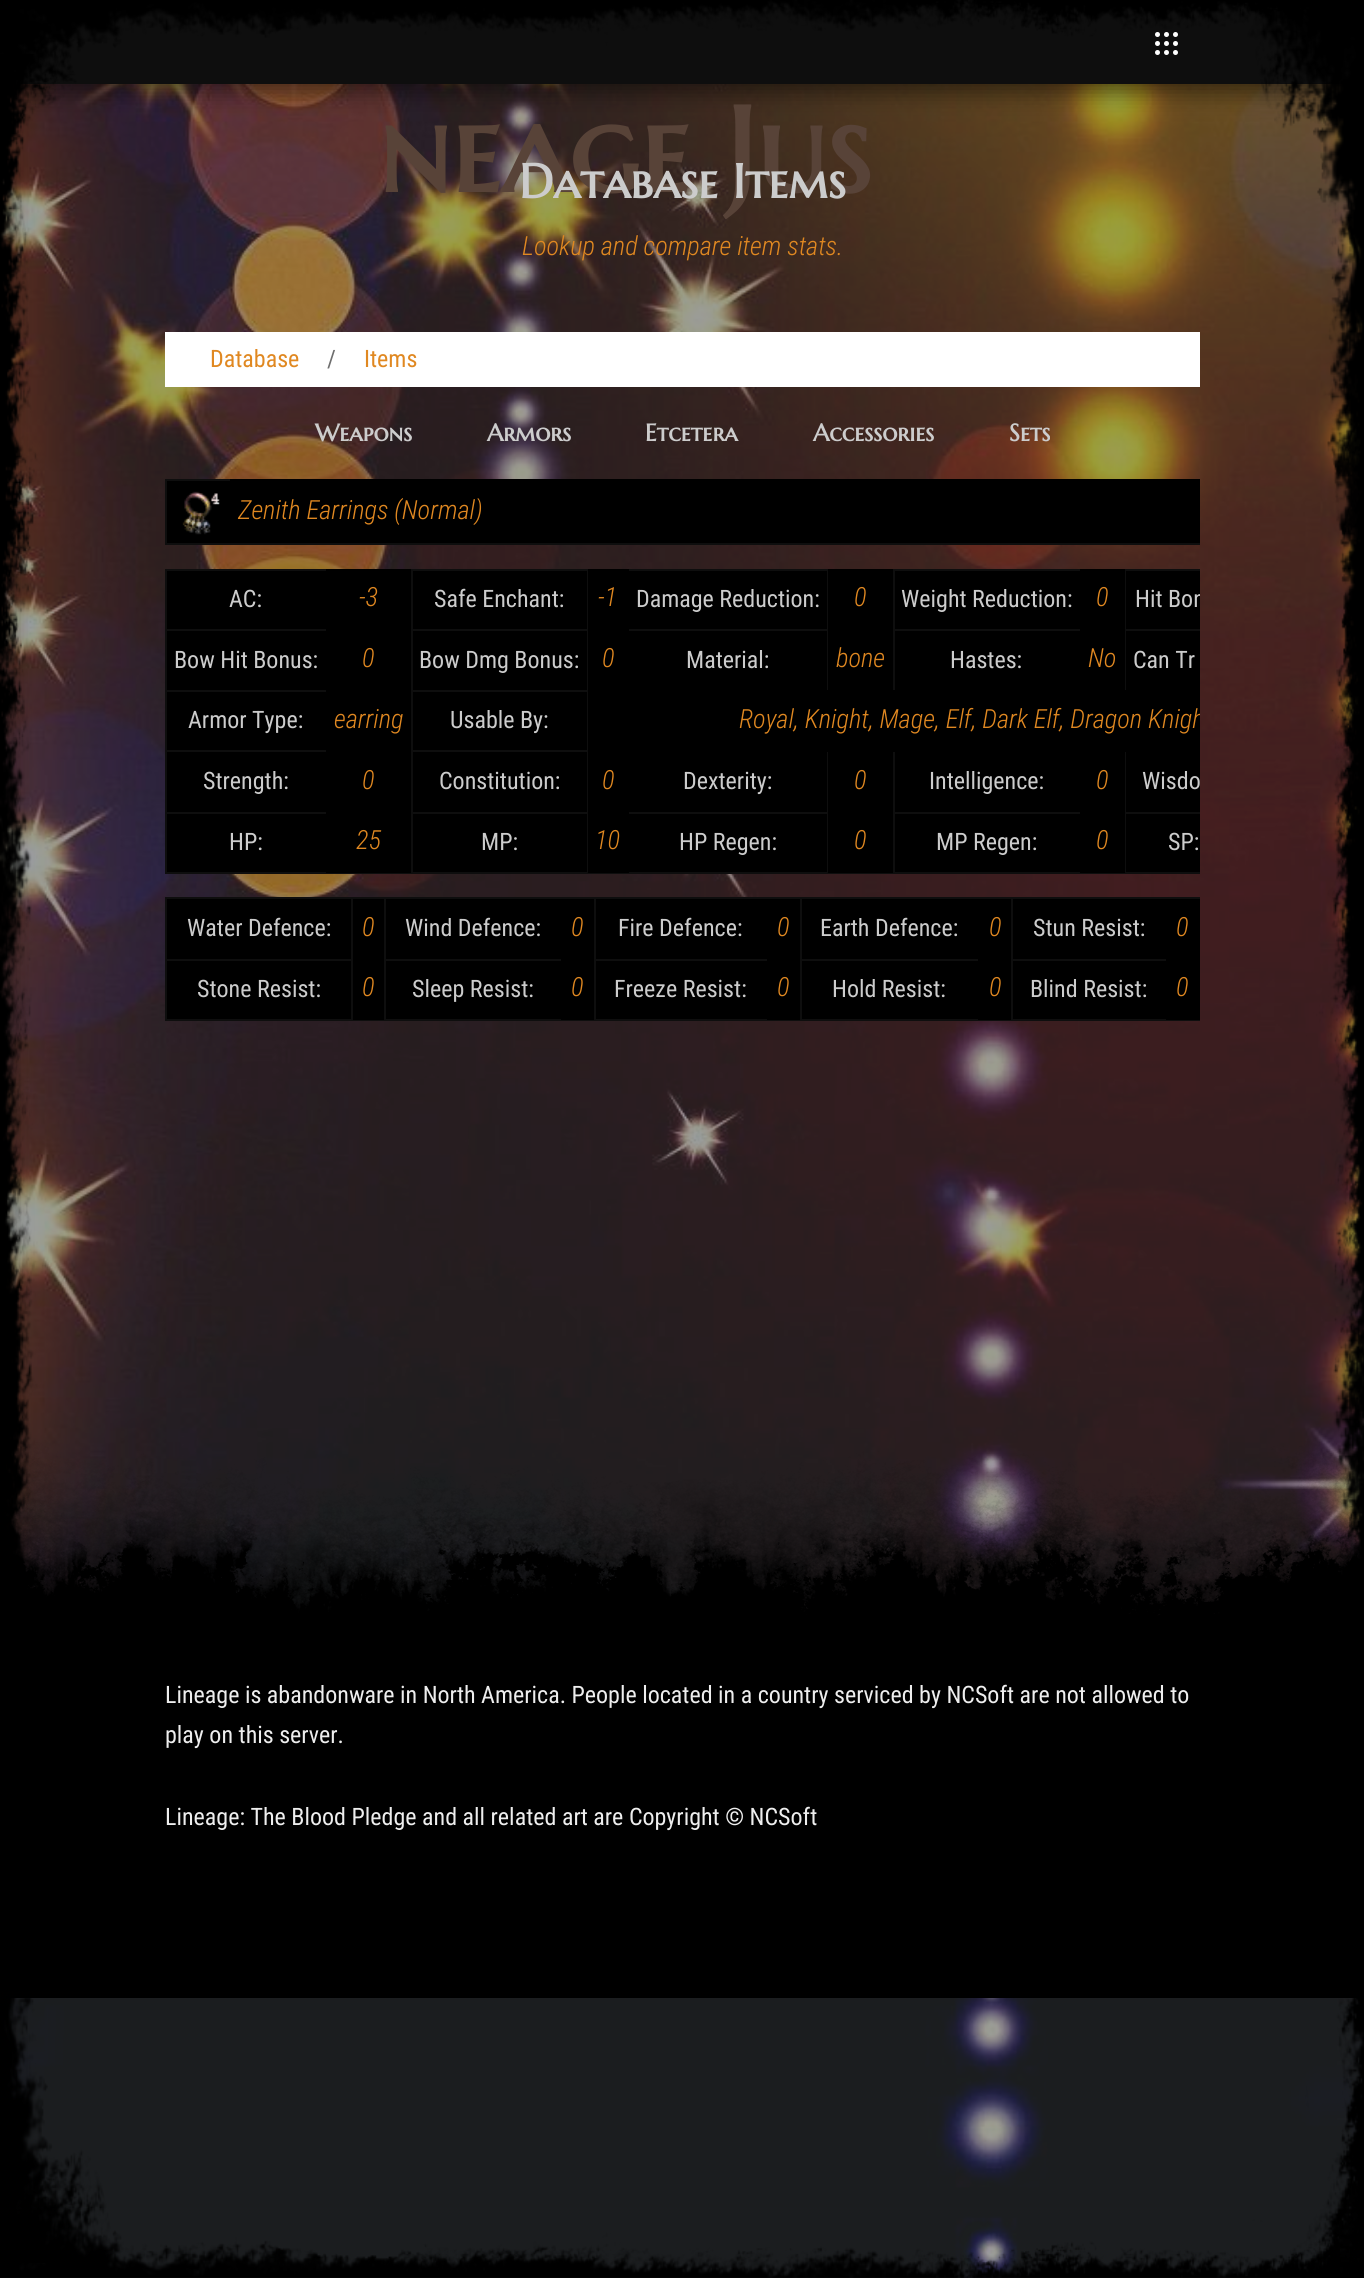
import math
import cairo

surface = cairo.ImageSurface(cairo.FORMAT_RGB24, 1364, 2278)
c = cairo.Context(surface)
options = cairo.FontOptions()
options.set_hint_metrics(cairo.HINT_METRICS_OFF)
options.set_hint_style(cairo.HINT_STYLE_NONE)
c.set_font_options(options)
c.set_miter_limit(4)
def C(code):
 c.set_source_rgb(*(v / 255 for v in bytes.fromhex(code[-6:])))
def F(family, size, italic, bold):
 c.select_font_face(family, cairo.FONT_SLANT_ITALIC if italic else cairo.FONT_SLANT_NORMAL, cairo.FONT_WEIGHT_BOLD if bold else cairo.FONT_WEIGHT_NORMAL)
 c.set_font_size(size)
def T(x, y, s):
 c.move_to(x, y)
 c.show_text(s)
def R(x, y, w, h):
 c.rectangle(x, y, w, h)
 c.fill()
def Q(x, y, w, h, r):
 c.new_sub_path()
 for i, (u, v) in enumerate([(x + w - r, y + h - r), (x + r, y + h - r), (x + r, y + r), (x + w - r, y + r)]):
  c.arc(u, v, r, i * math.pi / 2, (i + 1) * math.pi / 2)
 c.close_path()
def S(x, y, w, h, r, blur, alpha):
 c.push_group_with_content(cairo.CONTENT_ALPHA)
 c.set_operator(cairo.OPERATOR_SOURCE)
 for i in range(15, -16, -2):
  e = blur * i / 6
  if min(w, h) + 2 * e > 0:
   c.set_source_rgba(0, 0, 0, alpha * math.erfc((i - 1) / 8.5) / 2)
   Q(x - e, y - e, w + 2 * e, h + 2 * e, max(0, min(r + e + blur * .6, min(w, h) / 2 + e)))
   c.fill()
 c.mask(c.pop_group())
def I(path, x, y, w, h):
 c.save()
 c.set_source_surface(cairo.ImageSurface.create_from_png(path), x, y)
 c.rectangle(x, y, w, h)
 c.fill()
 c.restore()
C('373a3f')
c.paint()
I('5.png',0,84,1364,2194)
C('000000')
S(0,8,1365,84,0,11,.5)
C('0e0e0e')
R(0,0,1357,84)
C('ffffff')
c.arc(1157.5,34.5,2.5,0,2 * math.pi)
c.fill()
c.arc(1166.5,34.5,2.5,0,2 * math.pi)
c.fill()
c.arc(1175.5,34.5,2.5,0,2 * math.pi)
c.fill()
c.arc(1157.5,43.5,2.5,0,2 * math.pi)
c.fill()
c.arc(1166.5,43.5,2.5,0,2 * math.pi)
c.fill()
c.arc(1175.5,43.5,2.5,0,2 * math.pi)
c.fill()
c.arc(1157.5,52.5,2.5,0,2 * math.pi)
c.fill()
c.arc(1166.5,52.5,2.5,0,2 * math.pi)
c.fill()
c.arc(1175.5,52.5,2.5,0,2 * math.pi)
c.fill()
C('000000')
R(1,1644,1363,354)
I('7.png',4,1438,1360,206)
C('000000')
S(-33,-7,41,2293,0,11,.5)
F('Marcellus SC',120,0,1)
C('584338')
T(378,192,'neage Jus')
I('1.png',0,0,1364,124)
I('3.png',1242,9,122,2269)
I('4.png',0,2160,1340,118)
I('2.png',0,54,113,2209)
F('Marcellus SC',48,0,1)
C('cccccc')
T(519,198,'Database Items')
F('Roboto Condensed Light',26.4,1,0)
C('e08821')
T(522,255,'Lookup and compare item stats.')
C('ffffff')
R(165,332,1035,55)
F('Roboto Condensed',24,0,0)
C('e08821')
T(210,367,'Database')
C('6e6e6e')
T(327,367,'/')
C('e08821')
T(364,367,'Items')
F('Marcellus SC',24,0,1)
C('cccccc')
T(315,441,'Weapons')
T(487,441,'Armors')
T(645,441,'Etcetera')
T(813,441,'Accessories')
T(1009,441,'Sets')
C('000000')
R(167,481,63,62)
C('0e0e0e')
R(165,479,66,2)
R(165,543,1035,2)
R(165,479,2,66)
I('6.png',182,491,38,44)
C('000000')
R(230,479,970,64)
F('Roboto Condensed Light',26.4,1,0)
C('e08821')
T(238,519,'Zenith Earrings (Normal)')
C('000000')
R(167,571,159,58)
C('0e0e0e')
R(165,569,162,2)
R(165,629,162,2)
R(165,690,162,2)
R(165,750,162,2)
R(165,812,162,2)
R(1124,872,76,2)
R(1080,873,45,1)
R(893,872,189,2)
R(893,812,189,2)
R(893,750,2,123)
R(827,872,67,2)
R(827,812,1,61)
R(627,872,201,2)
R(587,873,42,1)
R(587,812,1,61)
R(411,872,177,2)
R(411,812,177,2)
R(411,812,2,61)
R(165,872,248,2)
R(165,812,2,61)
R(165,750,2,63)
R(165,690,2,62)
R(165,629,2,63)
R(165,569,2,61)
F('Roboto Condensed',24,0,0)
C('cccccc')
T(229,607,'AC:')
C('000000')
R(326,569,85,304)
F('Roboto Condensed Light',26.4,1,0)
C('e08821')
T(359,606,'-3')
C('000000')
R(413,571,174,58)
C('0e0e0e')
R(587,750,1,63)
R(411,750,177,2)
R(587,690,1,62)
R(411,690,177,2)
R(587,629,1,63)
R(411,629,177,2)
R(587,569,1,61)
R(411,569,177,2)
R(411,750,2,63)
R(411,690,2,62)
R(411,629,2,63)
R(411,569,2,61)
F('Roboto Condensed',24,0,0)
C('cccccc')
T(434,607,'Safe Enchant:')
C('0e0e0e')
R(827,629,1,63)
R(627,629,201,2)
R(827,569,1,61)
R(627,569,201,2)
C('000000')
R(588,569,41,121)
F('Roboto Condensed Light',26.4,1,0)
C('e08821')
T(598,606,'-1')
C('000000')
R(629,571,198,58)
F('Roboto Condensed',24,0,0)
C('cccccc')
T(636,607,'Damage Reduction:')
C('000000')
R(828,569,65,121)
F('Roboto Condensed Light',26.4,1,0)
C('e08821')
T(854,606,'0')
C('000000')
R(895,571,185,58)
C('0e0e0e')
R(893,569,189,2)
R(893,629,189,2)
R(893,629,2,63)
R(893,569,2,61)
F('Roboto Condensed',24,0,0)
C('cccccc')
T(901,607,'Weight Reduction:')
C('0e0e0e')
R(1124,569,76,2)
R(1124,629,76,2)
C('000000')
R(1080,569,45,121)
F('Roboto Condensed Light',26.4,1,0)
C('e08821')
T(1096,606,'0')
C('000000')
R(1126,571,74,58)
C('0e0e0e')
R(1125,629,1,63)
R(1125,569,1,61)
c.save()
c.rectangle(165,479,1035,565)
c.clip()
F('Roboto Condensed',24,0,0)
C('cccccc')
T(1135,607,'Hit Bon')
c.restore()
C('000000')
R(167,631,159,59)
F('Roboto Condensed',24,0,0)
C('cccccc')
T(174,668,'Bow Hit Bonus:')
F('Roboto Condensed Light',26.4,1,0)
C('e08821')
T(362,667,'0')
C('000000')
R(413,631,174,59)
F('Roboto Condensed',24,0,0)
C('cccccc')
T(419,668,'Bow Dmg Bonus:')
F('Roboto Condensed Light',26.4,1,0)
C('e08821')
T(602,667,'0')
C('000000')
R(629,631,198,59)
F('Roboto Condensed',24,0,0)
C('cccccc')
T(686,668,'Material:')
F('Roboto Condensed Light',26.4,1,0)
C('e08821')
T(836,667,'bone')
C('000000')
R(895,631,185,59)
F('Roboto Condensed',24,0,0)
C('cccccc')
T(950,668,'Hastes:')
F('Roboto Condensed Light',26.4,1,0)
C('e08821')
T(1088,667,'No')
C('000000')
R(1126,631,74,59)
F('Roboto Condensed',24,0,0)
C('cccccc')
T(1133,668,'Can Tr')
C('000000')
R(167,692,159,58)
C('cccccc')
T(188,728,'Armor Type:')
F('Roboto Condensed Light',26.4,1,0)
C('e08821')
T(334,728,'earring')
C('000000')
R(413,692,174,58)
F('Roboto Condensed',24,0,0)
C('cccccc')
T(450,728,'Usable By:')
C('0e0e0e')
R(627,812,201,2)
R(827,750,1,63)
R(1124,812,76,2)
R(1125,750,1,123)
C('000000')
R(588,690,612,62)
c.save()
c.rectangle(165,479,1035,565)
c.clip()
F('Roboto Condensed Light',26.4,1,0)
C('e08821')
T(739,728,'Royal, Knight, Mage, Elf, Dark Elf, Dragon Knigh')
c.restore()
R(167,752,159,60)
C('cccccc')
T(203,789,'Strength:')
F('Roboto Condensed Light',26.4,1,0)
C('e08821')
T(362,789,'0')
C('000000')
R(413,752,174,60)
F('Roboto Condensed',24,0,0)
C('cccccc')
T(439,789,'Constitution:')
C('000000')
R(588,752,239,60)
F('Roboto Condensed Light',26.4,1,0)
C('e08821')
T(602,789,'0')
F('Roboto Condensed',24,0,0)
C('cccccc')
T(683,789,'Dexterity:')
C('000000')
R(828,752,65,121)
F('Roboto Condensed Light',26.4,1,0)
C('e08821')
T(854,789,'0')
C('000000')
R(895,752,230,60)
F('Roboto Condensed',24,0,0)
C('cccccc')
T(929,789,'Intelligence:')
F('Roboto Condensed Light',26.4,1,0)
C('e08821')
T(1096,789,'0')
C('000000')
R(1126,752,74,60)
F('Roboto Condensed',24,0,0)
C('cccccc')
T(1142,789,'Wisdo')
C('000000')
R(167,814,159,58)
C('cccccc')
T(229,850,'HP:')
F('Roboto Condensed Light',26.4,1,0)
C('e08821')
T(356,849,'25')
C('000000')
R(413,814,174,58)
F('Roboto Condensed',24,0,0)
C('cccccc')
T(481,850,'MP:')
C('000000')
R(588,812,41,61)
F('Roboto Condensed Light',26.4,1,0)
C('e08821')
T(595,849,'10')
C('000000')
R(629,814,198,58)
F('Roboto Condensed',24,0,0)
C('cccccc')
T(679,850,'HP Regen:')
F('Roboto Condensed Light',26.4,1,0)
C('e08821')
T(854,849,'0')
C('000000')
R(895,814,185,58)
F('Roboto Condensed',24,0,0)
C('cccccc')
T(936,850,'MP Regen:')
C('000000')
R(1080,812,45,61)
F('Roboto Condensed Light',26.4,1,0)
C('e08821')
T(1096,849,'0')
C('000000')
R(1126,814,74,58)
F('Roboto Condensed',24,0,0)
C('cccccc')
T(1168,850,'SP:')
C('000000')
R(167,899,184,60)
C('0e0e0e')
R(1011,897,189,2)
R(1011,959,156,2)
R(1166,1020,34,1)
R(1011,1019,156,2)
R(1011,959,2,61)
R(1011,897,2,63)
R(800,897,213,2)
R(800,959,180,2)
R(800,1019,213,2)
R(800,959,2,61)
R(800,897,2,63)
R(594,897,207,2)
R(594,959,174,2)
R(594,1019,207,2)
R(594,959,2,61)
R(594,897,2,63)
R(384,897,212,2)
R(384,959,179,2)
R(384,1019,212,2)
R(384,959,2,61)
R(384,897,2,63)
R(351,897,35,2)
R(351,1019,35,2)
R(351,959,2,61)
R(165,959,188,2)
R(351,897,2,63)
R(165,897,188,2)
R(165,1019,188,2)
R(165,959,2,61)
R(165,897,2,63)
C('cccccc')
T(187,936,'Water Defence:')
C('000000')
R(353,899,31,121)
F('Roboto Condensed Light',26.4,1,0)
C('e08821')
T(362,936,'0')
C('000000')
R(386,899,208,60)
F('Roboto Condensed',24,0,0)
C('cccccc')
T(405,936,'Wind Defence:')
F('Roboto Condensed Light',26.4,1,0)
C('e08821')
T(571,936,'0')
C('000000')
R(596,899,204,60)
F('Roboto Condensed',24,0,0)
C('cccccc')
T(618,936,'Fire Defence:')
F('Roboto Condensed Light',26.4,1,0)
C('e08821')
T(777,936,'0')
C('000000')
R(802,899,209,60)
F('Roboto Condensed',24,0,0)
C('cccccc')
T(820,936,'Earth Defence:')
F('Roboto Condensed Light',26.4,1,0)
C('e08821')
T(989,936,'0')
C('000000')
R(1013,899,187,60)
F('Roboto Condensed',24,0,0)
C('cccccc')
T(1033,936,'Stun Resist:')
F('Roboto Condensed Light',26.4,1,0)
C('e08821')
T(1176,936,'0')
C('000000')
R(167,961,184,58)
F('Roboto Condensed',24,0,0)
C('cccccc')
T(197,997,'Stone Resist:')
F('Roboto Condensed Light',26.4,1,0)
C('e08821')
T(362,996,'0')
C('000000')
R(386,961,175,58)
F('Roboto Condensed',24,0,0)
C('cccccc')
T(412,997,'Sleep Resist:')
C('000000')
R(561,959,33,61)
F('Roboto Condensed Light',26.4,1,0)
C('e08821')
T(571,996,'0')
C('000000')
R(596,961,171,58)
F('Roboto Condensed',24,0,0)
C('cccccc')
T(614,997,'Freeze Resist:')
C('000000')
R(767,959,33,61)
F('Roboto Condensed Light',26.4,1,0)
C('e08821')
T(777,996,'0')
C('000000')
R(802,961,176,58)
F('Roboto Condensed',24,0,0)
C('cccccc')
T(832,997,'Hold Resist:')
C('000000')
R(978,959,33,61)
F('Roboto Condensed Light',26.4,1,0)
C('e08821')
T(989,996,'0')
C('000000')
R(1013,961,153,58)
F('Roboto Condensed',24,0,0)
C('cccccc')
T(1030,997,'Blind Resist:')
C('000000')
R(1166,959,34,61)
F('Roboto Condensed Light',26.4,1,0)
C('e08821')
T(1176,996,'0')
F('Roboto Condensed',24,0,0)
C('eeeeee')
T(165,1703,'Lineage is abandonware in North America. People located in a country serviced by NCSoft are not allowed to')
T(165,1743,'play on this server.')
T(165,1825,'Lineage: The Blood Pledge and all related art are Copyright © NCSoft')
surface.write_to_png('o.png')
